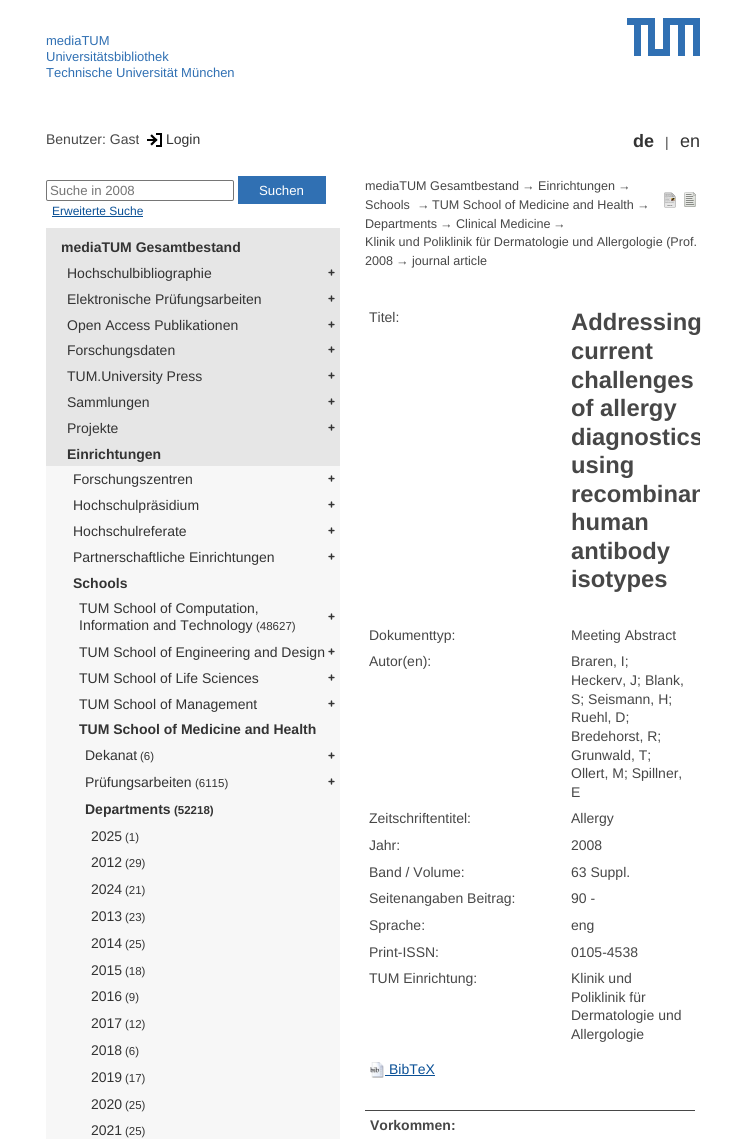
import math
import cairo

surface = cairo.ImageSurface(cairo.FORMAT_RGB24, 746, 1139)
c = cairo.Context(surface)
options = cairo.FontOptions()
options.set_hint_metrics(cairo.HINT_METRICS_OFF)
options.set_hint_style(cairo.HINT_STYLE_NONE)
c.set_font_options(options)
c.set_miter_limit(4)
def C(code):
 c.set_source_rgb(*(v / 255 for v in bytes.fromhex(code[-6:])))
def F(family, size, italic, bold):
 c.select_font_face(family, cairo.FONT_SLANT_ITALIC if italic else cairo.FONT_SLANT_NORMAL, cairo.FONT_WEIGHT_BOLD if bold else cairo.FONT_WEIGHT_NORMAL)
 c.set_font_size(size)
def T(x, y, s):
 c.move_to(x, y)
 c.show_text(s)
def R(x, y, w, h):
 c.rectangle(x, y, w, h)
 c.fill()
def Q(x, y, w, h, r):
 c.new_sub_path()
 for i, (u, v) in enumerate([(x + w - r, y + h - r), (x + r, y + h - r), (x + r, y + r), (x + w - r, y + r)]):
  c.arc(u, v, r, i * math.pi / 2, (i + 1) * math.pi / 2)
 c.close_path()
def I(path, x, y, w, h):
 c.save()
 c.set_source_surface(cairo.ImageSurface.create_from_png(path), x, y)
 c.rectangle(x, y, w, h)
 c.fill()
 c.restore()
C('ffffff')
c.paint()
F('Liberation Sans',13,0,0)
C('3070b3')
T(46,45,'mediaTUM')
T(46,61,'Universitätsbibliothek')
T(46,77,'Technische Universität München')
I('1.png',627,18,73,38)
F('Liberation Sans',14,0,0)
C('474747')
T(46,144,'Benutzer: Gast')
I('2.png',147,133,15,14)
C('333333')
T(166,144,'Login')
F('Liberation Sans',18,0,1)
T(633,147,'de')
F('Liberation Sans',14,0,0)
C('474747')
T(665,147,'|')
F('Liberation Sans',18,0,0)
C('333333')
T(680,147,'en')
Q(46.5,180.5,187,20,1.5)
C('767676')
c.set_line_width(1)
c.stroke()
F('Liberation Sans',13.25,0,0)
C('757575')
T(50,195,'Suche in 2008')
C('3070b3')
R(238,176,88,28)
C('ffffff')
T(259,195,'Suchen')
F('Liberation Sans',12,0,0)
C('0a5096')
T(52,215,'Erweiterte Suche')
R(52,216,91,1)
C('e6e6e6')
R(46,228,294,238)
F('Liberation Sans',14,0,1)
C('333333')
T(61,252,'mediaTUM Gesamtbestand')
F('Liberation Sans',14,0,0)
T(67,278,'Hochschulbibliographie')
I('3.png',328,269,7,7)
T(67,304,'Elektronische Prüfungsarbeiten')
I('3.png',328,295,7,7)
T(67,330,'Open Access Publikationen')
I('3.png',328,321,7,7)
T(67,355,'Forschungsdaten')
I('3.png',328,346,7,7)
T(67,381,'TUM.University Press')
I('3.png',328,372,7,7)
T(67,407,'Sammlungen')
I('3.png',328,398,7,7)
T(67,433,'Projekte')
I('3.png',328,424,7,7)
F('Liberation Sans',14,0,1)
T(67,459,'Einrichtungen')
C('f7f7f7')
R(46,466,294,673)
F('Liberation Sans',14,0,0)
C('333333')
T(73,484,'Forschungszentren')
I('4.png',328,475,7,7)
T(73,510,'Hochschulpräsidium')
I('4.png',328,501,7,7)
T(73,536,'Hochschulreferate')
I('4.png',328,527,7,7)
T(73,562,'Partnerschaftliche Einrichtungen')
I('4.png',328,553,7,7)
F('Liberation Sans',14,0,1)
T(73,588,'Schools')
F('Liberation Sans',14,0,0)
T(79,613,'TUM School of Computation,')
I('4.png',328,613,7,7)
T(79,630,'Information and Technology')
F('Liberation Sans',11.5,0,0)
T(256,630,'(48627)')
F('Liberation Sans',14,0,0)
T(79,657,'TUM School of Engineering and Design')
I('4.png',328,648,7,7)
T(79,683,'TUM School of Life Sciences')
I('4.png',328,674,7,7)
T(79,709,'TUM School of Management')
I('4.png',328,700,7,7)
F('Liberation Sans',14,0,1)
T(79,734,'TUM School of Medicine and Health')
F('Liberation Sans',14,0,0)
T(85,760,'Dekanat')
F('Liberation Sans',11.5,0,0)
T(140,760,'(6)')
I('4.png',328,752,7,7)
F('Liberation Sans',14,0,0)
T(85,787,'Prüfungsarbeiten')
F('Liberation Sans',11.5,0,0)
T(195,787,'(6115)')
I('4.png',328,778,7,7)
F('Liberation Sans',14,0,1)
T(85,814,'Departments')
F('Liberation Sans',11.5,0,1)
T(174,814,'(52218)')
F('Liberation Sans',14,0,0)
T(91,841,'2025')
F('Liberation Sans',11.5,0,0)
T(125,841,'(1)')
F('Liberation Sans',14,0,0)
T(91,867,'2012')
F('Liberation Sans',11.5,0,0)
T(125,867,'(29)')
F('Liberation Sans',14,0,0)
T(91,894,'2024')
F('Liberation Sans',11.5,0,0)
T(125,894,'(21)')
F('Liberation Sans',14,0,0)
T(91,921,'2013')
F('Liberation Sans',11.5,0,0)
T(125,921,'(23)')
F('Liberation Sans',14,0,0)
T(91,948,'2014')
F('Liberation Sans',11.5,0,0)
T(125,948,'(25)')
F('Liberation Sans',14,0,0)
T(91,975,'2015')
F('Liberation Sans',11.5,0,0)
T(125,975,'(18)')
F('Liberation Sans',14,0,0)
T(91,1001,'2016')
F('Liberation Sans',11.5,0,0)
T(125,1001,'(9)')
F('Liberation Sans',14,0,0)
T(91,1028,'2017')
F('Liberation Sans',11.5,0,0)
T(125,1028,'(12)')
F('Liberation Sans',14,0,0)
T(91,1055,'2018')
F('Liberation Sans',11.5,0,0)
T(125,1055,'(6)')
F('Liberation Sans',14,0,0)
T(91,1082,'2019')
F('Liberation Sans',11.5,0,0)
T(125,1082,'(17)')
F('Liberation Sans',14,0,0)
T(91,1109,'2020')
F('Liberation Sans',11.5,0,0)
T(125,1109,'(25)')
F('Liberation Sans',14,0,0)
T(91,1135,'2021')
F('Liberation Sans',11.5,0,0)
T(125,1135,'(25)')
F('Liberation Sans',12.6,0,0)
C('474747')
T(365,190,'mediaTUM Gesamtbestand')
T(522,190,'→')
T(538,190,'Einrichtungen')
T(618,190,'→')
T(365,209,'Schools')
T(417,209,'→')
T(432,209,'TUM School of Medicine and Health')
T(637,209,'→')
T(365,228,'Departments')
T(440,228,'→')
T(456,228,'Clinical Medicine')
T(553,228,'→')
T(365,246,'Klinik und Poliklinik für Dermatologie und Allergologie (Prof.')
T(365,265,'2008')
T(396,265,'→')
T(412,265,'journal article')
I('5.png',664,192,12,16)
I('6.png',684,192,12,15)
F('Liberation Sans',14,0,0)
T(369,322,'Titel:')
c.save()
c.rectangle(340,176,360,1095)
c.clip()
F('Liberation Sans',23.75,0,1)
T(571,330,'Addressing')
c.restore()
F('Liberation Sans',23.75,0,1)
T(571,359,'current')
T(571,388,'challenges')
T(571,416,'of allergy')
c.save()
c.rectangle(340,176,360,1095)
c.clip()
T(571,445,'diagnostics')
c.restore()
T(571,473,'using')
c.save()
c.rectangle(340,176,360,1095)
c.clip()
T(571,502,'recombinan')
c.restore()
T(571,530,'human')
T(571,559,'antibody')
T(571,587,'isotypes')
F('Liberation Sans',14,0,0)
T(369,640,'Dokumenttyp:')
T(571,640,'Meeting Abstract')
T(369,666,'Autor(en):')
T(571,666,'Braren, I;')
T(571,685,'Heckerv, J; Blank,')
T(571,704,'S; Seismann, H;')
T(571,722,'Ruehl, D;')
T(571,741,'Bredehorst, R;')
T(571,760,'Grunwald, T;')
T(571,778,'Ollert, M; Spillner,')
T(571,797,'E')
T(369,823,'Zeitschriftentitel:')
T(571,823,'Allergy')
T(369,850,'Jahr:')
T(571,850,'2008')
T(369,877,'Band / Volume:')
T(571,877,'63 Suppl.')
T(369,903,'Seitenangaben Beitrag:')
T(571,903,'90 -')
T(369,930,'Sprache:')
T(571,930,'eng')
T(369,957,'Print-ISSN:')
T(571,957,'0105-4538')
T(369,983,'TUM Einrichtung:')
T(571,983,'Klinik und')
T(571,1002,'Poliklinik für')
T(571,1020,'Dermatologie und')
T(571,1039,'Allergologie')
I('7.png',370,1062,14,16)
C('0a5096')
T(389,1074,'BibTeX')
R(385,1075,50,1)
C('474747')
R(365,1110,330,1)
F('Liberation Sans',14,0,1)
T(370,1130,'Vorkommen:')
surface.write_to_png('o.png')
